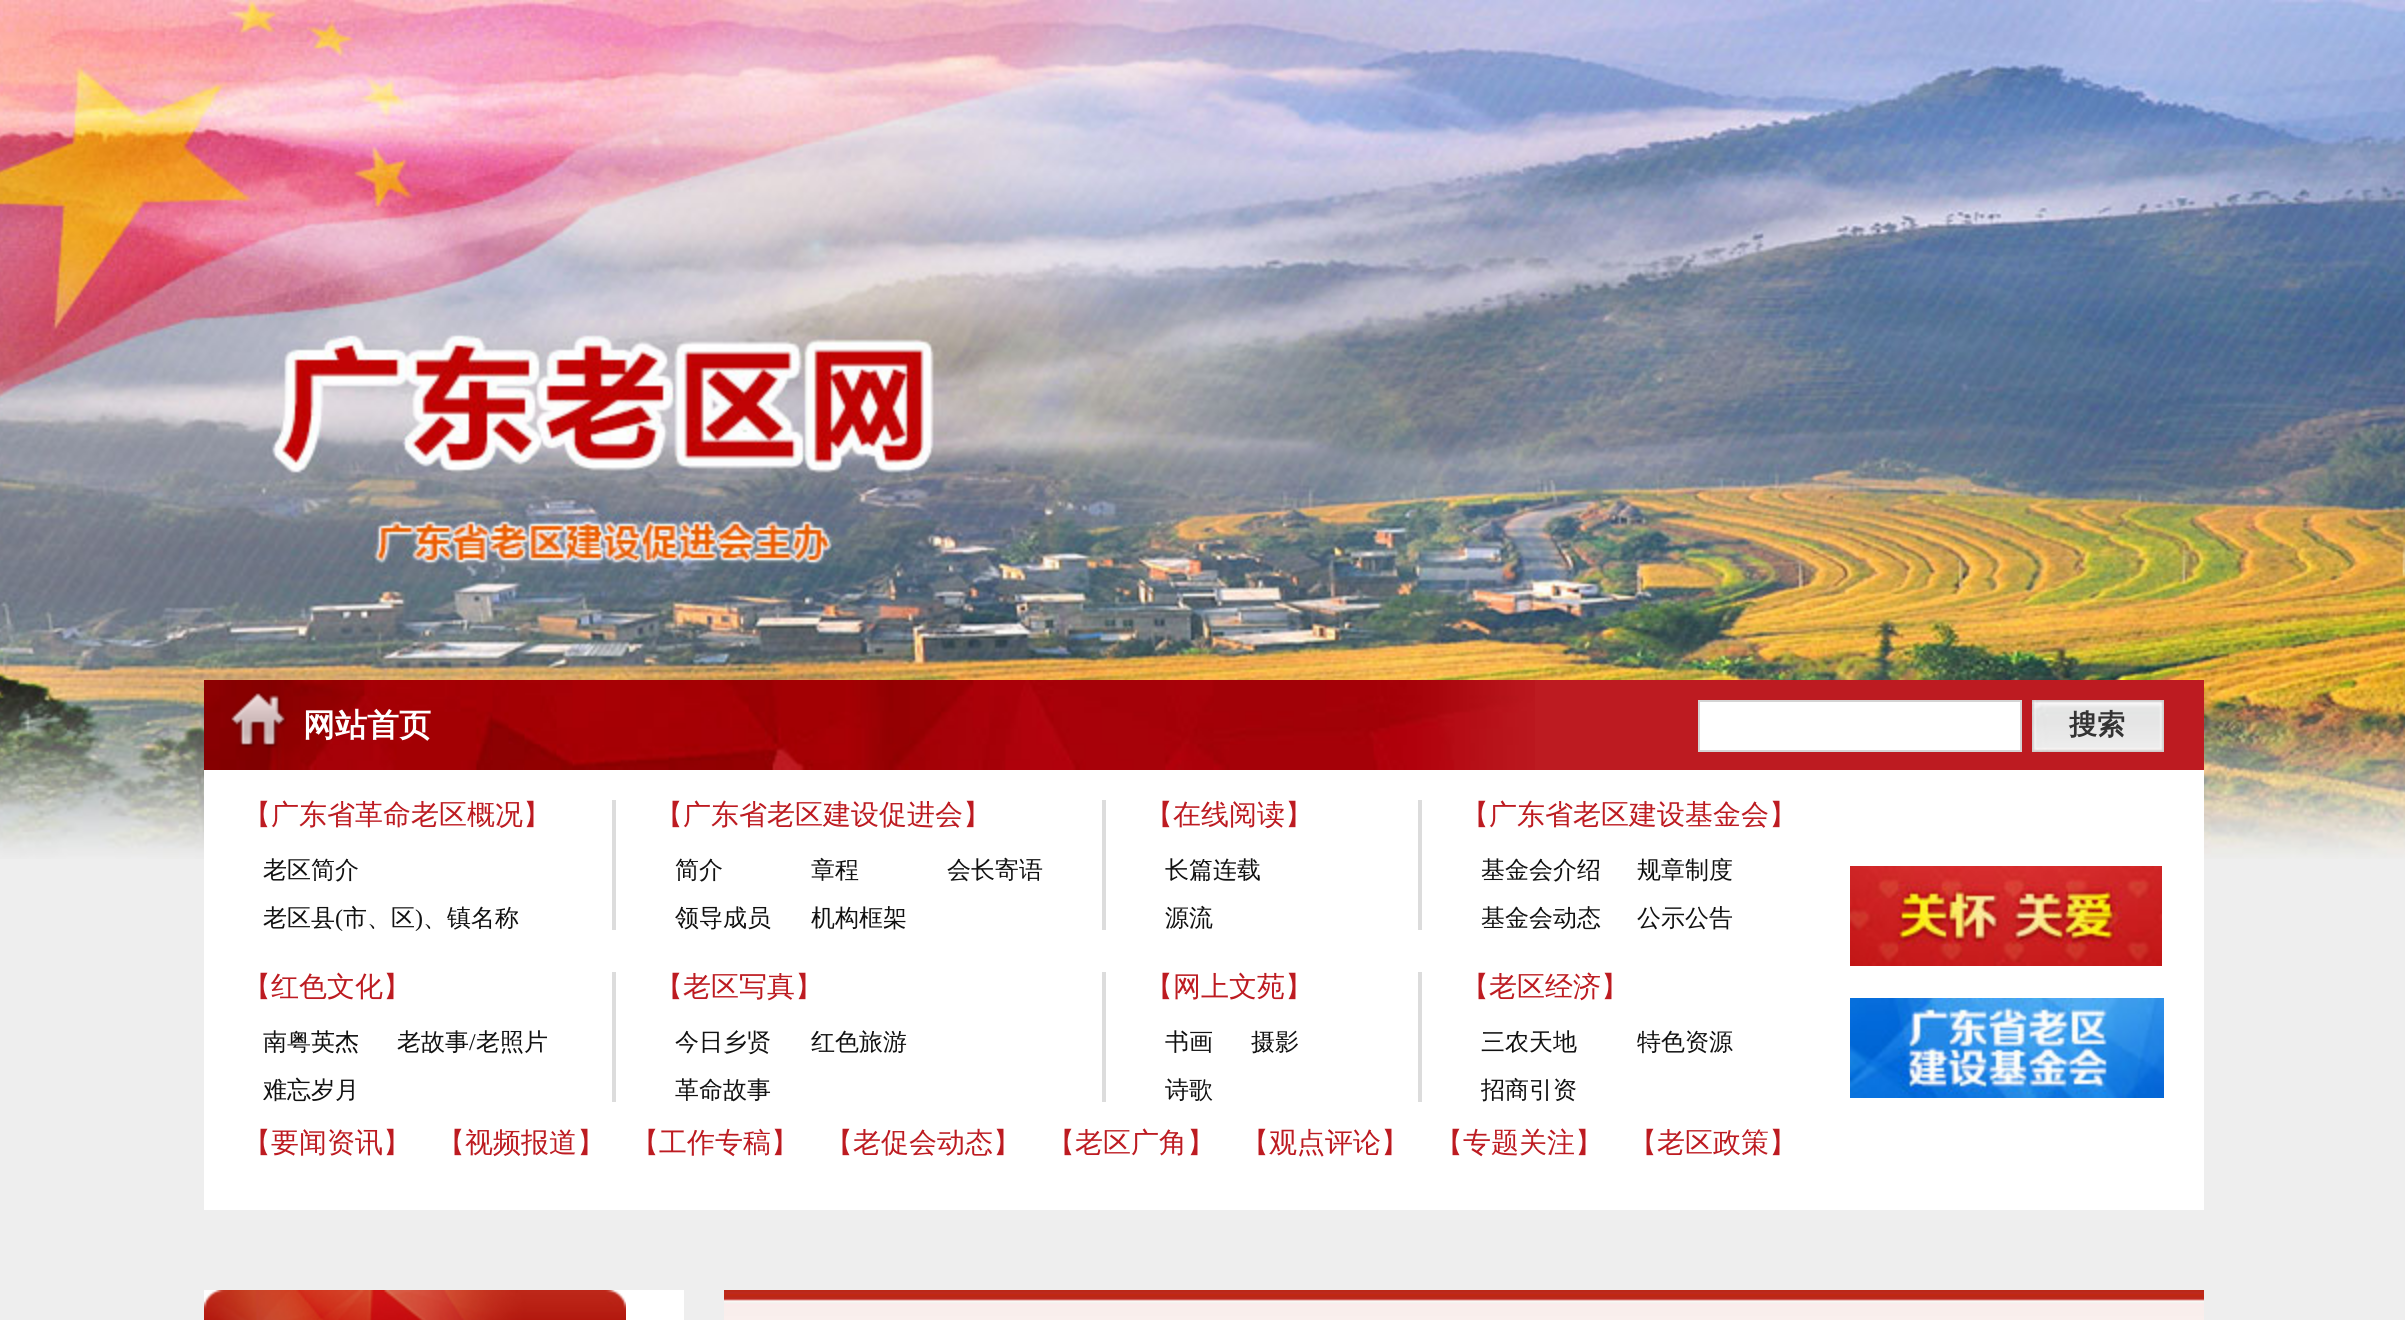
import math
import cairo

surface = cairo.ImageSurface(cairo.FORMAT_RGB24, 2405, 1320)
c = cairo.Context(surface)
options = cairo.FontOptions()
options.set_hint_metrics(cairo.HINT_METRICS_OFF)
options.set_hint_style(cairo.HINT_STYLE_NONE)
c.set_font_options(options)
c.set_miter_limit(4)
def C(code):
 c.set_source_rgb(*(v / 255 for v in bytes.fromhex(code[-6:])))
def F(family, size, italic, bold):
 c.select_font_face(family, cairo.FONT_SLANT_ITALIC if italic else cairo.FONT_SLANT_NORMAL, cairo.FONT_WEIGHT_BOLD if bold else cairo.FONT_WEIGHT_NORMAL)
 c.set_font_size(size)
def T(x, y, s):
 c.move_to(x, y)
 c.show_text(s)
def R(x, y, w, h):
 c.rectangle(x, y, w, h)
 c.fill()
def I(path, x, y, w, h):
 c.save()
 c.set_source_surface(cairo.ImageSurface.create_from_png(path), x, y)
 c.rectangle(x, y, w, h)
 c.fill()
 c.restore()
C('eeeeee')
c.paint()
I('1.png',0,0,2405,859)
C('bd1b21')
R(1535,680,669,90)
I('2.png',204,680,1331,90)
I('3.png',230,692,57,56)
F('WenQuanYi Zen Hei',32,0,1)
C('ffffff')
T(303,736,'网站首页')
c.rectangle(1699,701,322,50)
c.fill_preserve()
C('d4d4d4')
c.stroke()
I('4.png',2032,700,132,52)
F('WenQuanYi Zen Hei',28,0,1)
C('333333')
T(2069,734,'搜索')
C('ffffff')
R(204,770,2000,440)
C('dcdcdc')
R(612,800,4,130)
F('WenQuanYi Zen Hei Medium',28,0,0)
C('bd1b21')
T(243,824,'【广东省革命老区概况】')
F('WenQuanYi Zen Hei Medium',24,0,0)
C('111111')
T(263,878,'老区简介')
T(263,926,'老区县')
F('Liberation Serif',24,0,0)
T(335,926,'(')
F('WenQuanYi Zen Hei Medium',24,0,0)
T(343,926,'市、区')
F('Liberation Serif',24,0,0)
T(415,926,')')
F('WenQuanYi Zen Hei Medium',24,0,0)
T(423,926,'、镇名称')
C('dcdcdc')
R(1102,800,4,130)
F('WenQuanYi Zen Hei Medium',28,0,0)
C('bd1b21')
T(655,824,'【广东省老区建设促进会】')
F('WenQuanYi Zen Hei Medium',24,0,0)
C('111111')
T(675,878,'简介')
T(811,878,'章程')
T(947,878,'会长寄语')
T(675,926,'领导成员')
T(811,926,'机构框架')
C('dcdcdc')
R(1418,800,4,130)
F('WenQuanYi Zen Hei Medium',28,0,0)
C('bd1b21')
T(1145,824,'【在线阅读】')
F('WenQuanYi Zen Hei Medium',24,0,0)
C('111111')
T(1165,878,'长篇连载')
T(1165,926,'源流')
F('WenQuanYi Zen Hei Medium',28,0,0)
C('bd1b21')
T(1461,824,'【广东省老区建设基金会】')
F('WenQuanYi Zen Hei Medium',24,0,0)
C('111111')
T(1481,878,'基金会介绍')
T(1637,878,'规章制度')
T(1481,926,'基金会动态')
T(1637,926,'公示公告')
C('dcdcdc')
R(612,972,4,130)
F('WenQuanYi Zen Hei Medium',28,0,0)
C('bd1b21')
T(243,996,'【红色文化】')
F('WenQuanYi Zen Hei Medium',24,0,0)
C('111111')
T(263,1050,'南粤英杰')
T(397,1050,'老故事')
F('Liberation Serif',24,0,0)
T(469,1050,'/')
F('WenQuanYi Zen Hei Medium',24,0,0)
T(476,1050,'老照片')
T(263,1098,'难忘岁月')
C('dcdcdc')
R(1102,972,4,130)
F('WenQuanYi Zen Hei Medium',28,0,0)
C('bd1b21')
T(655,996,'【老区写真】')
F('WenQuanYi Zen Hei Medium',24,0,0)
C('111111')
T(675,1050,'今日乡贤')
T(811,1050,'红色旅游')
T(675,1098,'革命故事')
C('dcdcdc')
R(1418,972,4,130)
F('WenQuanYi Zen Hei Medium',28,0,0)
C('bd1b21')
T(1145,996,'【网上文苑】')
F('WenQuanYi Zen Hei Medium',24,0,0)
C('111111')
T(1165,1050,'书画')
T(1251,1050,'摄影')
T(1165,1098,'诗歌')
F('WenQuanYi Zen Hei Medium',28,0,0)
C('bd1b21')
T(1461,996,'【老区经济】')
F('WenQuanYi Zen Hei Medium',24,0,0)
C('111111')
T(1481,1050,'三农天地')
T(1637,1050,'特色资源')
T(1481,1098,'招商引资')
F('WenQuanYi Zen Hei Medium',28,0,0)
C('bd1b21')
T(243,1152,'【要闻资讯】')
T(437,1152,'【视频报道】')
T(631,1152,'【工作专稿】')
T(825,1152,'【老促会动态】')
T(1047,1152,'【老区广角】')
T(1241,1152,'【观点评论】')
T(1435,1152,'【专题关注】')
T(1629,1152,'【老区政策】')
I('5.png',1850,866,312,100)
I('6.png',1850,998,314,100)
C('ffffff')
R(626,1290,58,30)
I('7.png',204,1290,422,30)
I('8.png',724,1290,1480,30)
surface.write_to_png('o.png')
